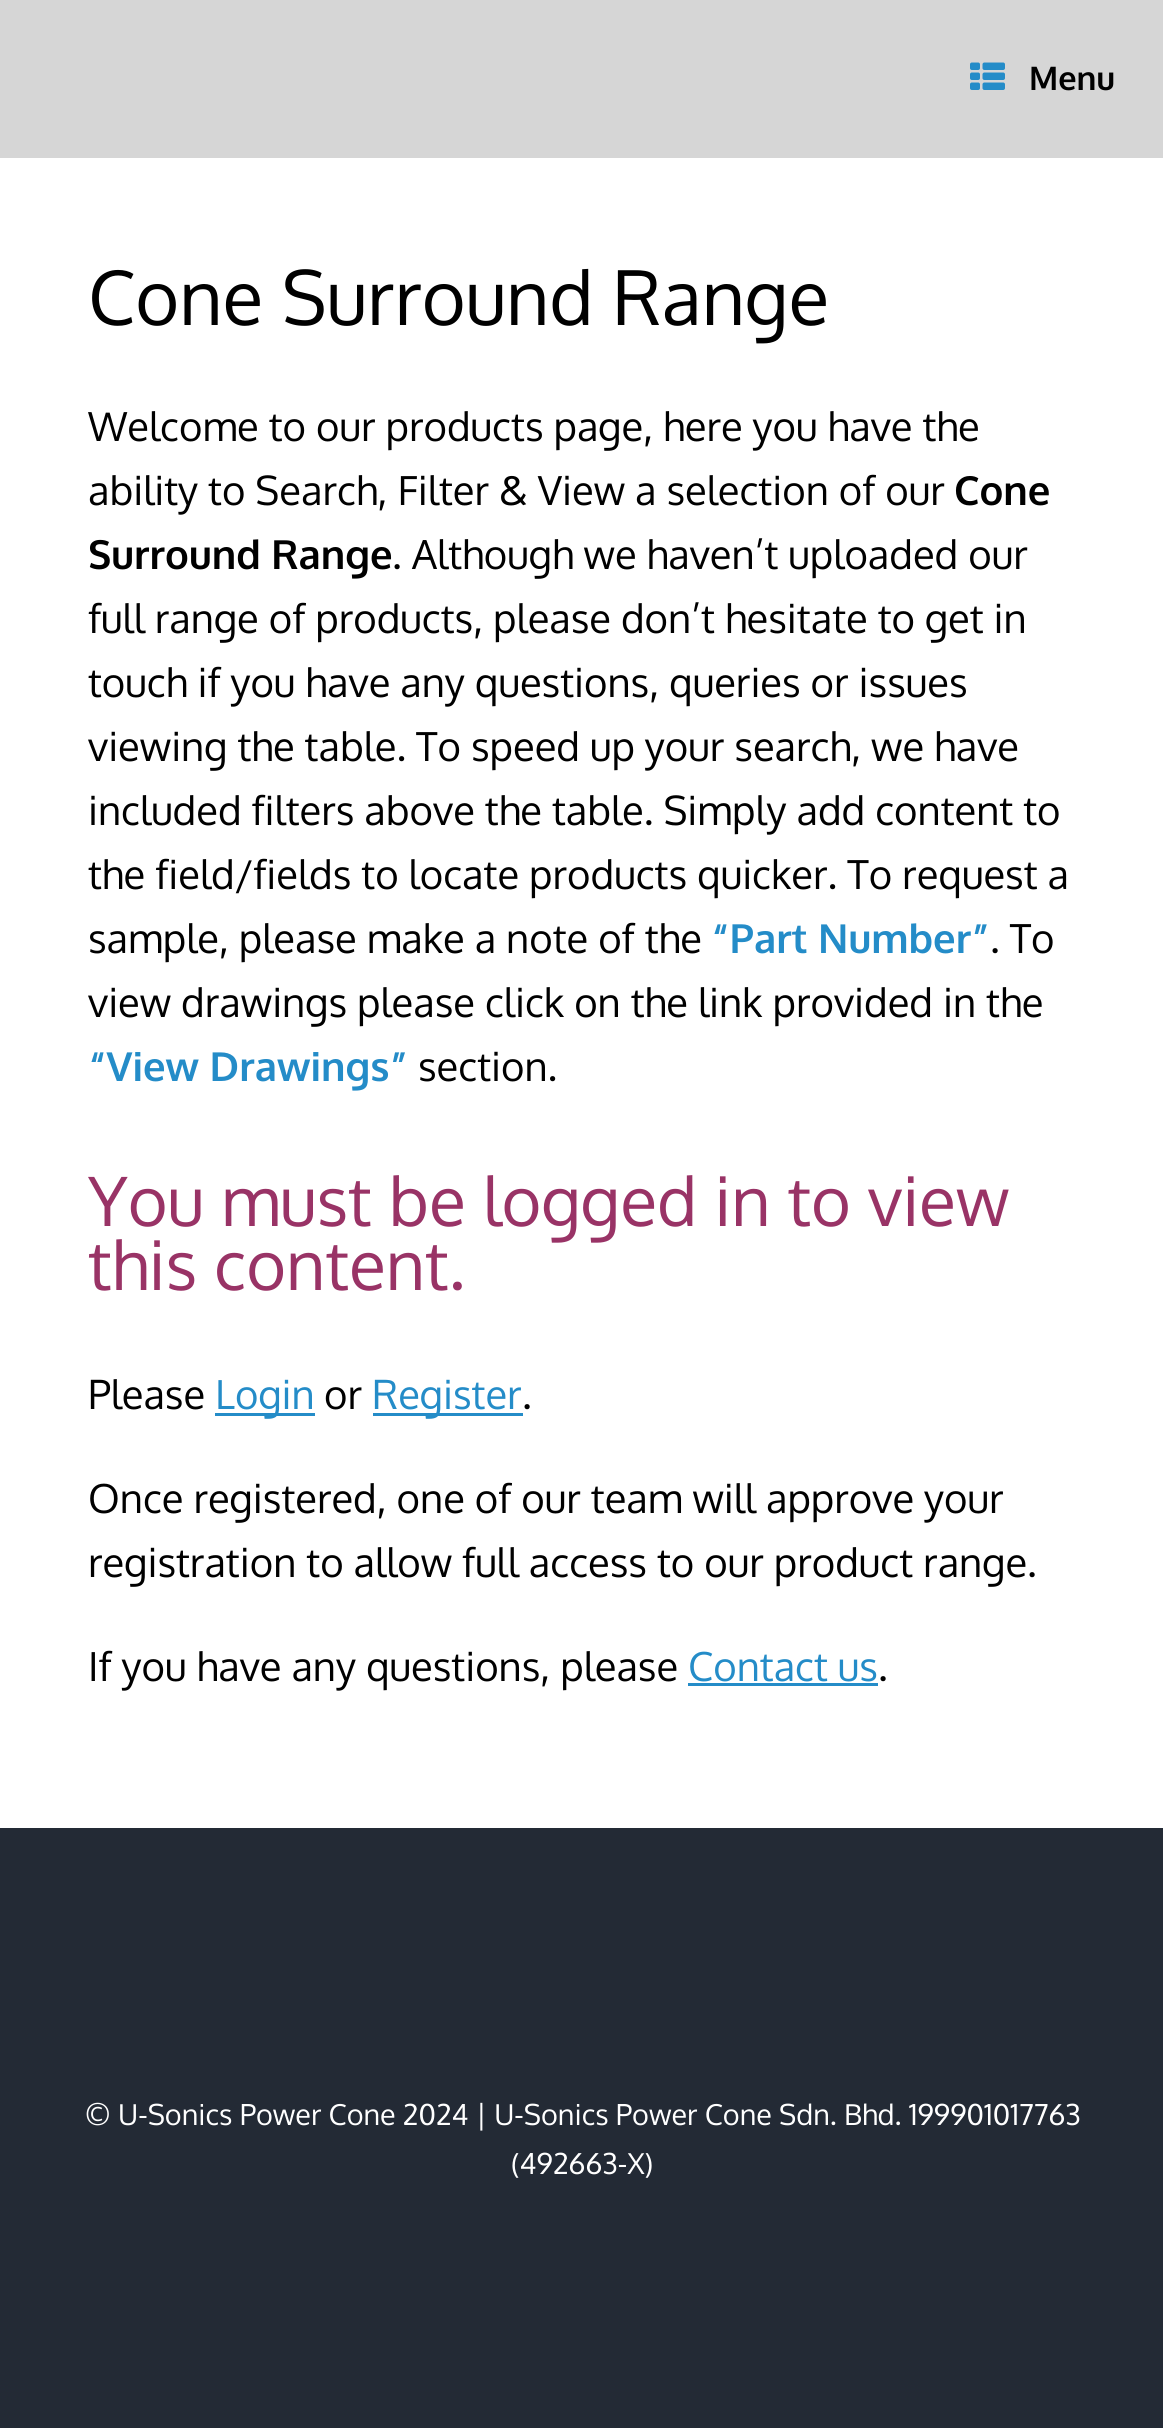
import math
import cairo

surface = cairo.ImageSurface(cairo.FORMAT_RGB24, 1163, 2428)
c = cairo.Context(surface)
options = cairo.FontOptions()
options.set_hint_metrics(cairo.HINT_METRICS_OFF)
options.set_hint_style(cairo.HINT_STYLE_NONE)
c.set_font_options(options)
c.set_miter_limit(4)
def C(code):
 c.set_source_rgb(*(v / 255 for v in bytes.fromhex(code[-6:])))
def F(family, size, italic, bold):
 c.select_font_face(family, cairo.FONT_SLANT_ITALIC if italic else cairo.FONT_SLANT_NORMAL, cairo.FONT_WEIGHT_BOLD if bold else cairo.FONT_WEIGHT_NORMAL)
 c.set_font_size(size)
def T(x, y, s):
 c.move_to(x, y)
 c.show_text(s)
def R(x, y, w, h):
 c.rectangle(x, y, w, h)
 c.fill()
def I(path, x, y, w, h):
 c.save()
 c.set_source_surface(cairo.ImageSurface.create_from_png(path), x, y)
 c.rectangle(x, y, w, h)
 c.fill()
 c.restore()
C('232a35')
c.paint()
C('d6d6d6')
R(0,0,1163,158)
I('1.png',970,62,35,28)
F('Oxygen',32.5,0,1)
C('000000')
T(1029,90,'Menu')
C('ffffff')
R(0,158,1163,1670)
F('Oxygen',75,0,0)
C('000000')
T(88,325,'Cone Surround Range')
F('Oxygen',40,0,0)
T(88,441,'Welcome to our products page, here you have the')
T(88,505,'ability to Search, Filter & View a selection of our')
F('Oxygen',40,0,1)
T(954,505,'Cone')
T(88,569,'Surround Range')
F('Oxygen',40,0,0)
T(392,569,'. Although we haven’t uploaded our')
T(88,633,'full range of products, please don’t hesitate to get in')
T(88,697,'touch if you have any questions, queries or issues')
T(88,761,'viewing the table. To speed up your search, we have')
T(88,825,'included filters above the table. Simply add content to')
T(88,889,'the field/fields to locate products quicker. To request a')
T(88,953,'sample, please make a note of the')
F('Oxygen',40,0,1)
C('248cc8')
T(711,953,'“Part Number”')
F('Oxygen',40,0,0)
C('000000')
T(990,953,'. To')
T(88,1017,'view drawings please click on the link provided in the')
F('Oxygen',40,0,1)
C('248cc8')
T(88,1081,'“View Drawings”')
F('Oxygen',40,0,0)
C('000000')
T(418,1081,'section.')
F('Oxygen',68,0,0)
C('993366')
T(88,1226,'You must be logged in to view')
T(88,1290,'this content.')
F('Oxygen',40,0,0)
C('000000')
T(88,1409,'Please')
C('248cc8')
R(215,1413,100,3)
T(215,1409,'Login')
C('000000')
T(324,1409,'or')
C('248cc8')
R(373,1413,150,3)
T(372,1409,'Register')
C('000000')
T(522,1409,'.')
T(88,1513,'Once registered, one of our team will approve your')
T(88,1577,'registration to allow full access to our product range.')
T(88,1681,'If you have any questions, please')
C('248cc8')
T(688,1681,'Contact us')
R(688,1683,190,3)
C('000000')
T(878,1681,'.')
F('Oxygen',28.75,0,0)
C('ffffff')
T(85,2125,'© U-Sonics Power Cone 2024 | U-Sonics Power Cone Sdn. Bhd. 199901017763')
T(511,2174,'(492663-X)')
surface.write_to_png('o.png')
